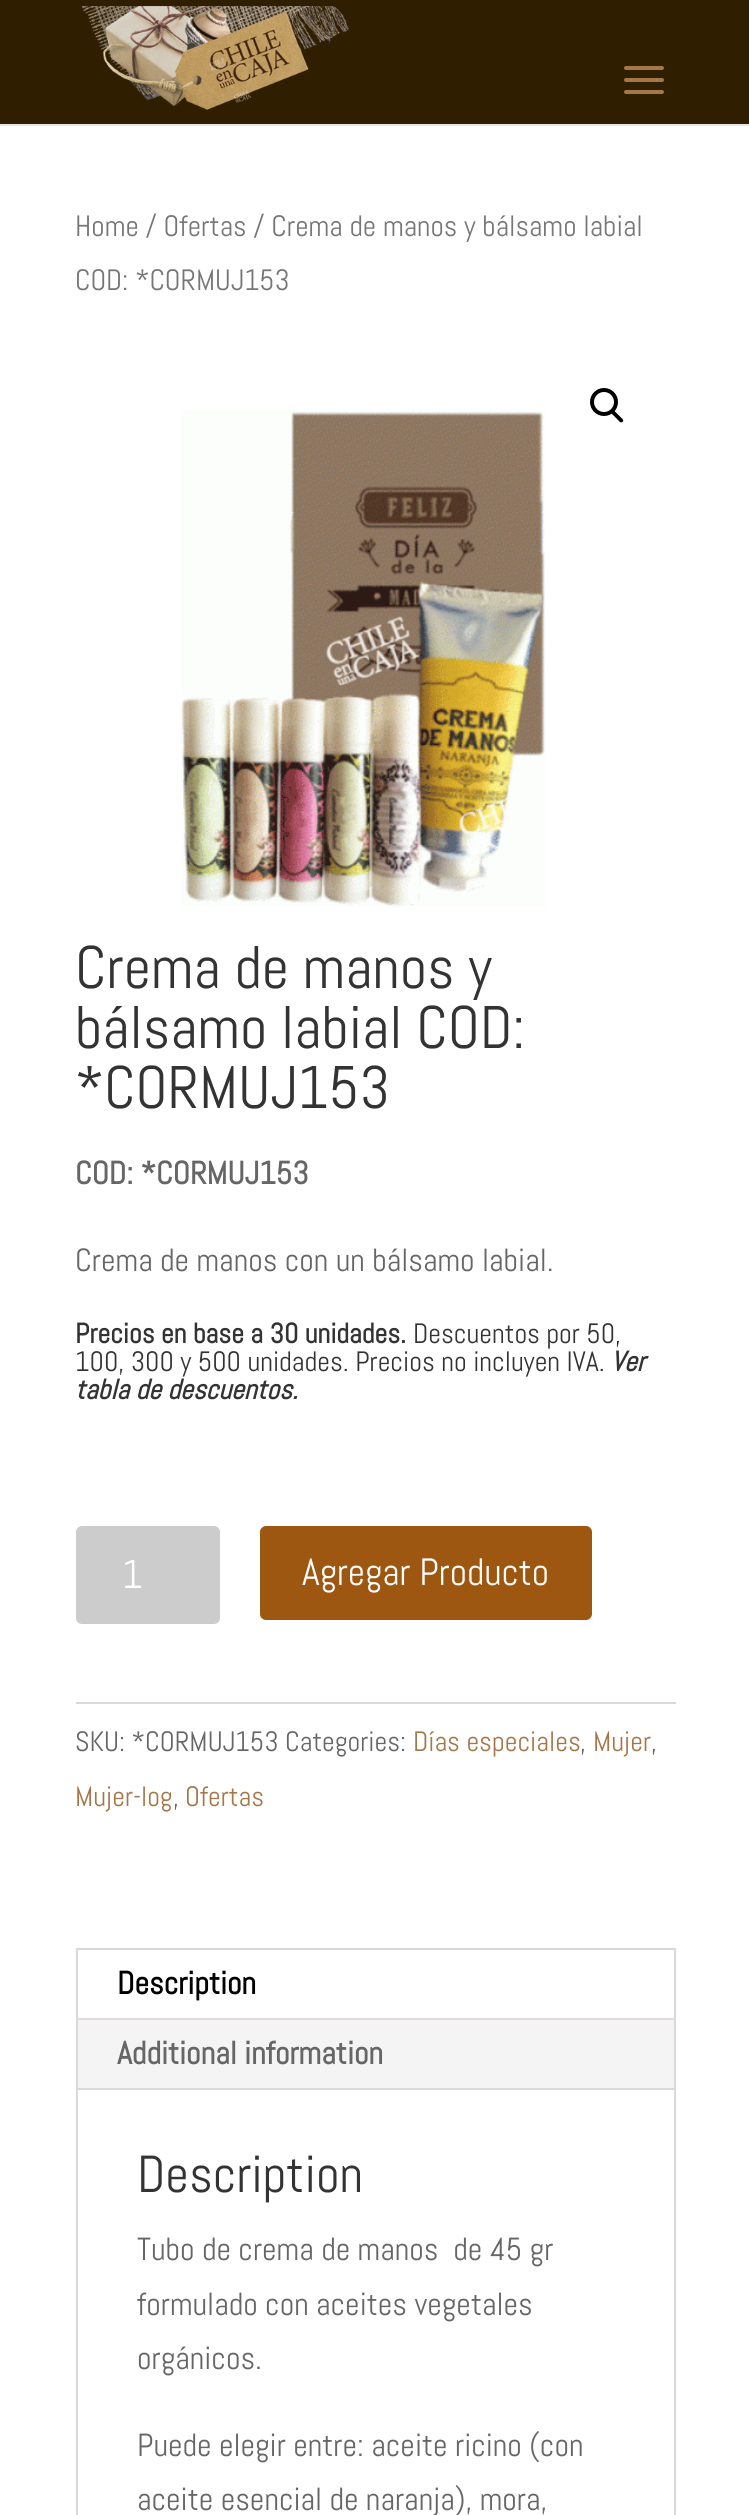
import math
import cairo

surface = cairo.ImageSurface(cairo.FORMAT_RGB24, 749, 2515)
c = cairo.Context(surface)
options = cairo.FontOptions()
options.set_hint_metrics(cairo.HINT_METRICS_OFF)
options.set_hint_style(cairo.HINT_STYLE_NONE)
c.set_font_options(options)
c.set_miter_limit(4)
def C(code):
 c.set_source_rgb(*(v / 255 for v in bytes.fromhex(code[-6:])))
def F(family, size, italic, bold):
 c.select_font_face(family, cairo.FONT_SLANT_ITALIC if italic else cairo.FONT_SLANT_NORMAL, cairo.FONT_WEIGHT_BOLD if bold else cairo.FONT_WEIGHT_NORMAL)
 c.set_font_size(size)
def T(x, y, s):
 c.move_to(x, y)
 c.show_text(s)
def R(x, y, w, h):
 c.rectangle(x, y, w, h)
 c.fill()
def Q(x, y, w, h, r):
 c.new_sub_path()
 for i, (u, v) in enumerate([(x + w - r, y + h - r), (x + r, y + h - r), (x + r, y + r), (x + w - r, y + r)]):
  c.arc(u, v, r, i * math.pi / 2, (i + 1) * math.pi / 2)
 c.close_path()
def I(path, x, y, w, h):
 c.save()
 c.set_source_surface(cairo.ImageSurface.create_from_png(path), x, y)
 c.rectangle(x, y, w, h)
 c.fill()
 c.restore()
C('ffffff')
c.paint()
C('e6e6e6')
R(0,124,749,2)
C('301e00')
R(0,0,749,124)
I('1.png',82,6,267,104)
I('2.png',624,66,40,28)
F('Abel',29.4,0,0)
C('767676')
T(75,236,'Home / Ofertas / Crema de manos y bálsamo labial')
T(75,290,'COD: *CORMUJ153')
c.new_path()
c.arc(604,402,12,0,2 * math.pi)
C('000000')
c.set_line_width(4)
c.stroke()
c.new_path()
c.move_to(611.5,410.5)
c.curve_to(612,410,613.5,410,614,410.5)
c.line_to(622.5,419)
c.curve_to(623.5,420,623.5,421,622.5,422)
c.curve_to(622,422.5,620.5,422.5,620,422)
c.line_to(611.5,413.5)
c.curve_to(610.5,412.5,610.5,411.5,611.5,410.5)
c.close_path()
c.fill()
I('3.png',181,410,365,497)
F('Abel',60,0,0)
C('333333')
T(75,988,'Crema de manos y')
T(75,1048,'bálsamo labial COD:')
T(75,1108,'*CORMUJ153')
F('Abel',32,0,1)
C('666666')
T(75,1184,'COD: *CORMUJ153')
F('Abel',32,0,0)
T(75,1271,'Crema de manos con un bálsamo labial.')
F('Abel',28,0,1)
C('333333')
T(75,1343,'Precios en base a 30 unidades.')
F('Abel',28,0,0)
T(413,1343,'Descuentos por 50,')
T(75,1371,'100, 300 y 500 unidades. Precios no incluyen IVA.')
F('Abel',28,1,1)
T(611,1371,'Ver')
T(75,1399,'tabla de descuentos.')
C('cccccc')
Q(76,1526,144,98,6)
c.fill()
F('Abel',40,0,0)
C('ffffff')
T(122,1588,'1')
C('9e5711')
Q(262,1528,328,90,4)
c.fill_preserve()
c.stroke()
F('Abel',38,0,0)
C('ffffff')
T(302,1585,'Agregar Producto')
C('dadada')
R(76,1702,600,2)
F('Abel',28,0,0)
C('666666')
T(75,1751,'SKU: *CORMUJ153 Categories:')
C('a57748')
T(413,1751,'Días especiales')
C('666666')
T(580,1751,',')
C('a57748')
T(593,1751,'Mujer')
C('666666')
T(651,1751,',')
C('a57748')
T(75,1806,'Mujer-log')
C('666666')
T(173,1806,',')
C('a57748')
T(185,1806,'Ofertas')
c.rectangle(77,1949,598,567)
C('d9d9d9')
c.set_line_width(2)
c.stroke()
C('f4f4f4')
R(78,2020,596,68)
C('e0dadf')
R(78,2018,596,2)
F('Abel',32,0,1)
C('000000')
T(117,1994,'Description')
C('666666')
T(117,2064,'Additional information')
C('d9d9d9')
R(78,2088,596,2)
F('Abel',52,0,0)
C('333333')
T(137,2192,'Description')
F('Abel',32,0,0)
C('666666')
T(137,2260,'Tubo de crema de manos  de 45 gr')
T(137,2315,'formulado con aceites vegetales')
T(137,2369,'orgánicos.')
T(137,2456,'Puede elegir entre: aceite ricino (con')
T(137,2510,'aceite esencial de naranja), mora,')
surface.write_to_png('o.png')
